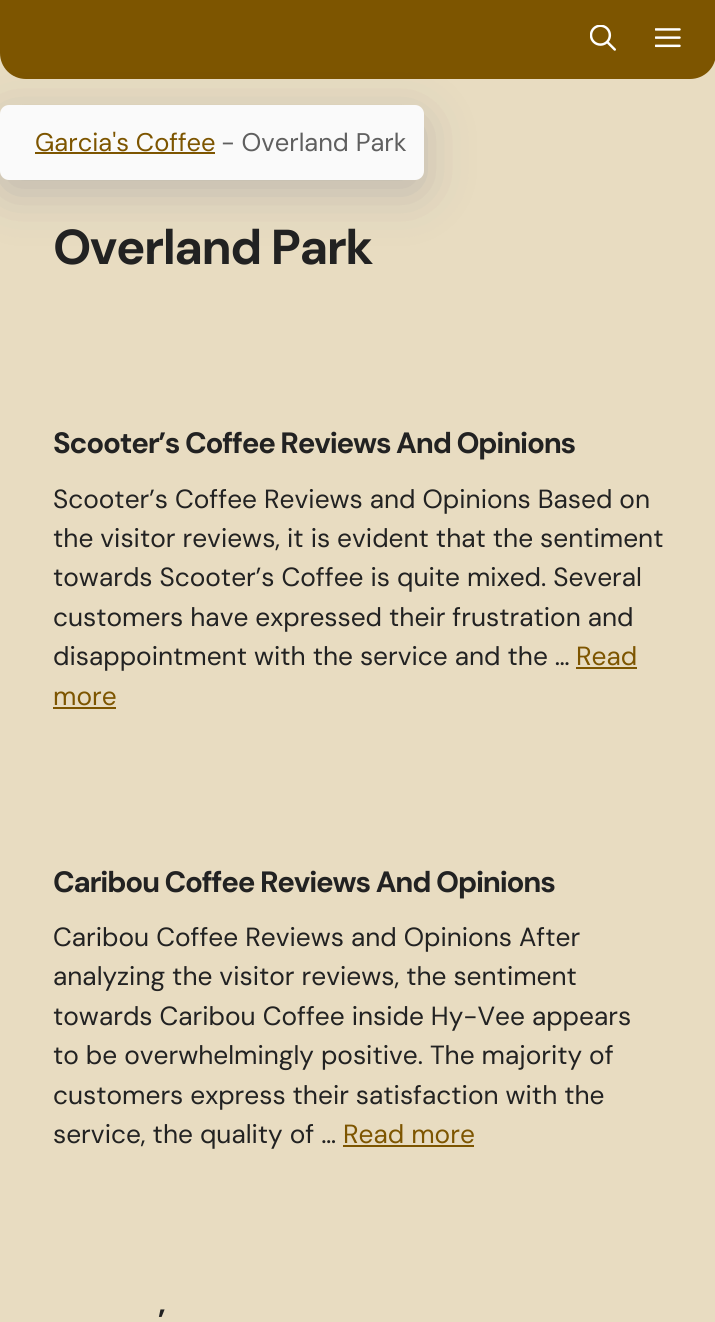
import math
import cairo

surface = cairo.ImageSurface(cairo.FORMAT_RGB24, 715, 1322)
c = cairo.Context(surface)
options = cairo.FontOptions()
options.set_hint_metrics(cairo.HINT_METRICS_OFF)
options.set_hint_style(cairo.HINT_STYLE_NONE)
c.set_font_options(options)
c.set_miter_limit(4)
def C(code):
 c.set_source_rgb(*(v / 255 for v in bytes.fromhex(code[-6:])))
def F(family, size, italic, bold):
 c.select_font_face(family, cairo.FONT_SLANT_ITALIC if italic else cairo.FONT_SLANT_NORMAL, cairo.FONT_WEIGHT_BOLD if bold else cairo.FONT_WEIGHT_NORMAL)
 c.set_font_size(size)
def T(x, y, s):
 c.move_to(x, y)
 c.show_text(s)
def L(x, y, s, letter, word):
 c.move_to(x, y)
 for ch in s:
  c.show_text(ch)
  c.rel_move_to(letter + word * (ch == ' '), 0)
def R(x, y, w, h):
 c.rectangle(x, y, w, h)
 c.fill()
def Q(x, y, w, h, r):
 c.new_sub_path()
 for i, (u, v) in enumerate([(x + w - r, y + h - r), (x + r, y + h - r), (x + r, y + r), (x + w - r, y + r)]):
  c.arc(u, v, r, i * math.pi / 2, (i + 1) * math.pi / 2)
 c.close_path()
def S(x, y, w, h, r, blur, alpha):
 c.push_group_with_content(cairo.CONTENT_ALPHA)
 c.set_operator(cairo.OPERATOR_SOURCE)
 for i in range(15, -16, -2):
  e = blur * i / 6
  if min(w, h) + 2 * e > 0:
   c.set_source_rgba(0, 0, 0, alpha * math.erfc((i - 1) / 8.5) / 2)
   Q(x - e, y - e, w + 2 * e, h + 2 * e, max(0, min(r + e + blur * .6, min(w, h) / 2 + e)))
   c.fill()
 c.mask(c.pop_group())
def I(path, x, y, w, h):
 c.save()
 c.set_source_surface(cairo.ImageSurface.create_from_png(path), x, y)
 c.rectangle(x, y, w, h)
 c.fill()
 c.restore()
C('e8dcc1')
c.paint()
C('7d5500')
c.new_path()
c.move_to(0,0)
c.line_to(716,0)
c.line_to(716,53)
c.curve_to(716,67.5,704.5,79,690,79)
c.line_to(26,79)
c.curve_to(11.5,79,0,67.5,0,53)
c.close_path()
c.fill()
I('1.png',590,25,26,26)
I('2.png',655,28,26,20)
C('172b63')
S(0,117,424,76,9,24.5,.2)
C('fafafa')
Q(0,105,424,75,9)
c.fill()
F('DM Sans',25.5,0,0)
C('7d5500')
T(35,151,'Garcia\'s Coffee')
R(35,152,180,2)
C('5f5f5f')
T(221,151,'- Overland Park')
F('DM Sans',49,0,1)
C('222222')
L(53,264,'Overland Park',-1.5,0)
F('DM Sans',29.4,0,1)
L(53,453,'Scooter’s Coffee Reviews And Opinions',-1.2,0)
F('DM Sans',26.25,0,0)
T(53,508,'Scooter’s Coffee Reviews and Opinions Based on')
T(53,547,'the visitor reviews, it is evident that the sentiment')
T(53,586,'towards Scooter’s Coffee is quite mixed. Several')
T(53,626,'customers have expressed their frustration and')
T(53,665,'disappointment with the service and the …')
C('7d5500')
T(576,665,'Read')
R(576,667,61,2)
T(53,705,'more')
R(53,707,63,2)
F('DM Sans',29.4,0,1)
C('222222')
L(53,892,'Caribou Coffee Reviews And Opinions',-1.2,0)
F('DM Sans',26.25,0,0)
T(53,946,'Caribou Coffee Reviews and Opinions After')
T(53,985,'analyzing the visitor reviews, the sentiment')
T(53,1025,'towards Caribou Coffee inside Hy-Vee appears')
T(53,1064,'to be overwhelmingly positive. The majority of')
T(53,1104,'customers express their satisfaction with the')
T(53,1143,'service, the quality of …')
C('7d5500')
T(343,1143,'Read more')
R(343,1145,131,2)
F('DM Sans',29.4,0,1)
C('222222')
L(158,1330,'’',-1.2,0)
surface.write_to_png('o.png')
